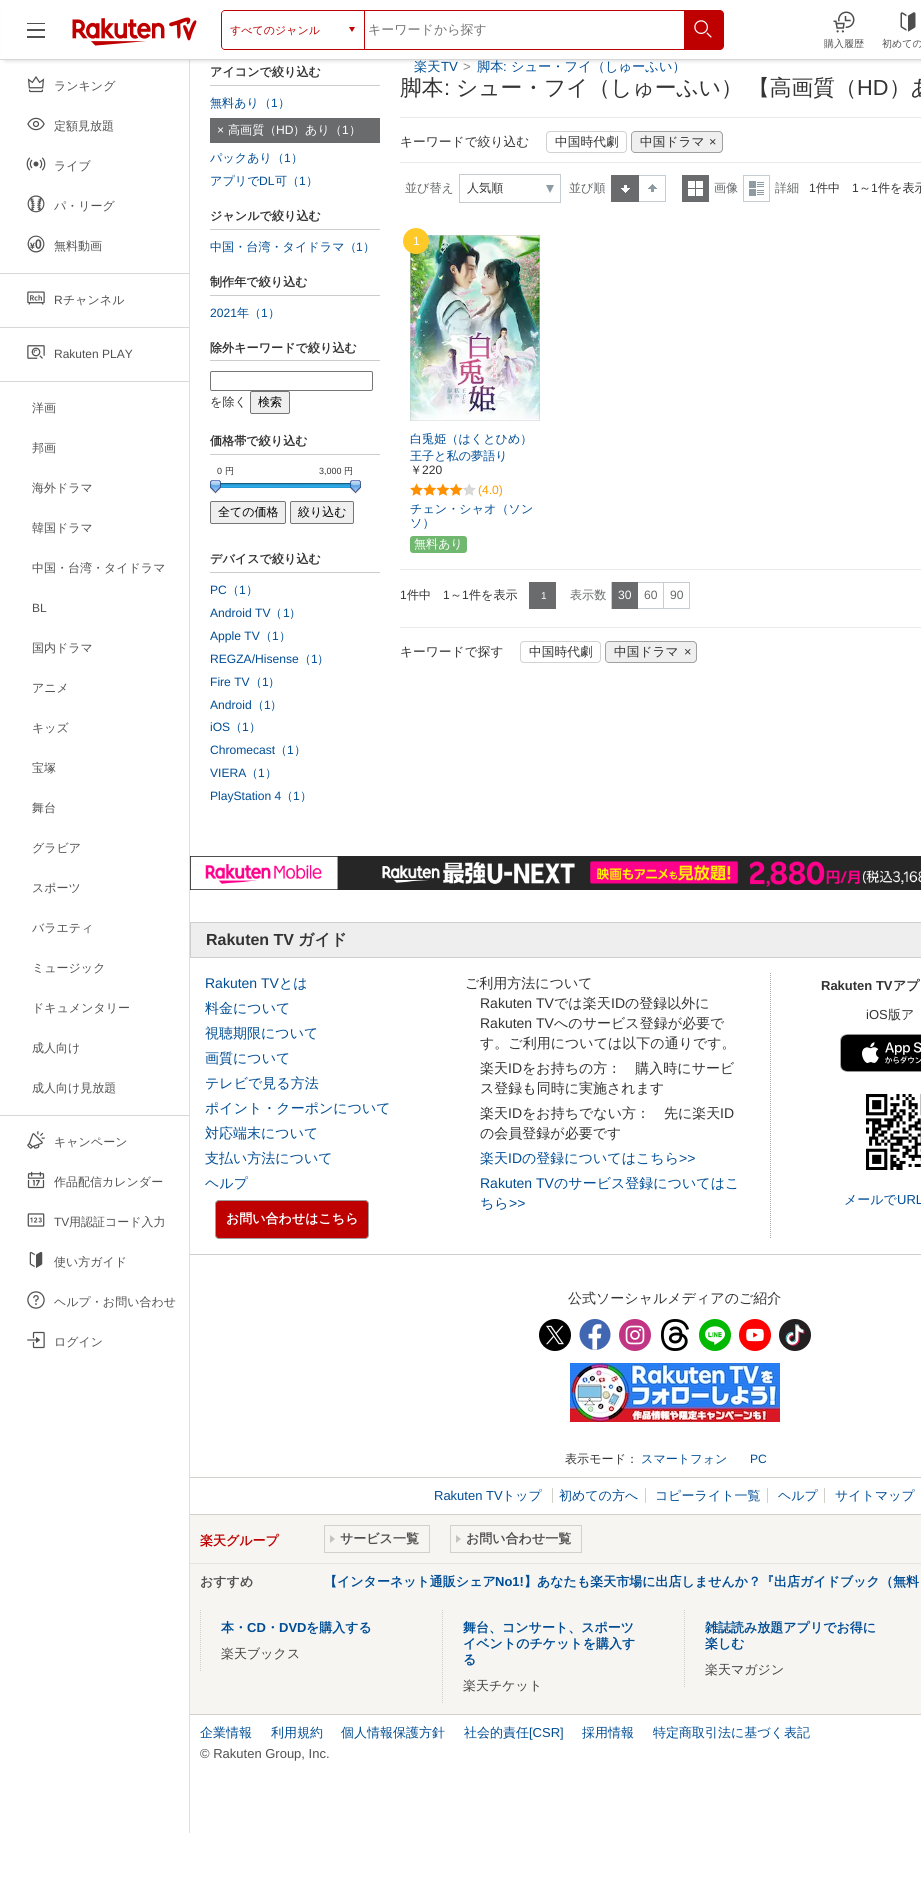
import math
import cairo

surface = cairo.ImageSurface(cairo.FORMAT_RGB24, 921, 1893)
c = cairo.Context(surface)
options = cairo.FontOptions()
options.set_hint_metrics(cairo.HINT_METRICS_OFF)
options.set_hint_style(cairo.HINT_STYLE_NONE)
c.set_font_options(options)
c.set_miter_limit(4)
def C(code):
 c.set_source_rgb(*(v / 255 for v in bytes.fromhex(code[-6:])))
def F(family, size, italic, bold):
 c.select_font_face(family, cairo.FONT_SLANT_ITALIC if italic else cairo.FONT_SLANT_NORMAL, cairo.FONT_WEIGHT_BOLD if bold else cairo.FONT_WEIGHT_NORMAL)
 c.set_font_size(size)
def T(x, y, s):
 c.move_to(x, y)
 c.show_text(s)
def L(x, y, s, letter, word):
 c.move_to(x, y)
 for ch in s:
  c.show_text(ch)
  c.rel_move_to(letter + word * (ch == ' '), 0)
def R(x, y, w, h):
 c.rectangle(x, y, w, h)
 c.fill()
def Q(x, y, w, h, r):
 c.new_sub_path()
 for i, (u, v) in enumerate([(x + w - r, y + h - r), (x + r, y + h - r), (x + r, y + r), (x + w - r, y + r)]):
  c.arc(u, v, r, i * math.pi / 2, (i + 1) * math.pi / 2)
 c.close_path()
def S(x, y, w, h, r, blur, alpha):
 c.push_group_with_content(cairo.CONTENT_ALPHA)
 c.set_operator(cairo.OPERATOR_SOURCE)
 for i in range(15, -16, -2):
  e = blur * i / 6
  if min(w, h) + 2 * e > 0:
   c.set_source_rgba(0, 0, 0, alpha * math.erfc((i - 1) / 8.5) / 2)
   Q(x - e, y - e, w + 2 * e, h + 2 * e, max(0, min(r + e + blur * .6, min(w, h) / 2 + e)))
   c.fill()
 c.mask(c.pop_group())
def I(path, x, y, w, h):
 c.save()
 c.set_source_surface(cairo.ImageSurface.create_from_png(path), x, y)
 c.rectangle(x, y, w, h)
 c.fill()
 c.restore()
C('ffffff')
c.paint()
C('dfdfdf')
R(189,60,1,1773)
C('000000')
S(5,10,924,50,0,2.5,.2)
C('ffffff')
R(1,6,920,53)
C('d7d7d7')
R(0,59,921,1)
C('515151')
R(27,23,18,1)
R(27,29,18,2)
R(27,36,18,2)
I('1.png',72,17,125,29)
C('bf0000')
c.set_fill_rule(cairo.FILL_RULE_EVEN_ODD)
c.new_path()
c.move_to(225,10)
c.line_to(365,10)
c.line_to(365,50)
c.line_to(225,50)
c.curve_to(223,50,221,48,221,46)
c.line_to(221,14)
c.curve_to(221,12,223,10,225,10)
c.close_path()
c.move_to(225,11)
c.line_to(365,11)
c.line_to(365,49)
c.line_to(225,49)
c.curve_to(223,49,222,48,222,46)
c.line_to(222,14)
c.curve_to(222,12,223,11,225,11)
c.close_path()
c.fill()
F('WenQuanYi Zen Hei Medium',11,0,0)
T(230,34,'すべてのジャンル')
c.set_fill_rule(cairo.FILL_RULE_WINDING)
c.new_path()
c.move_to(349,27)
c.line_to(355,27)
c.line_to(352,32)
c.close_path()
c.fill()
R(364,11,1,39)
R(365,10,319,1)
R(365,49,319,1)
F('WenQuanYi Zen Hei Medium',13,0,0)
C('757575')
T(368,34,'キーワードから探す')
C('bf0000')
c.new_path()
c.move_to(684,10)
c.line_to(720,10)
c.curve_to(722,10,724,12,724,14)
c.line_to(724,46)
c.curve_to(724,48,722,50,720,50)
c.line_to(684,50)
c.close_path()
c.fill()
I('2.png',694,20,18,18)
I('3.png',833,11,22,22)
F('WenQuanYi Zen Hei Medium',10,0,0)
C('515151')
T(824,47,'購入履歴')
I('4.png',900,12,16,20)
T(882,47,'初めての')
I('5.png',27,76,18,17)
F('WenQuanYi Zen Hei Medium',12,0,0)
T(54,90,'ランキング')
I('6.png',27,117,18,14)
T(54,130,'定額見放題')
I('7.png',26,157,20,14)
T(54,170,'ライブ')
I('8.png',27,195,18,18)
T(54,210,'パ・リーグ')
I('9.png',27,235,18,18)
T(54,250,'無料動画')
C('d8d8d8')
R(0,273,189,1)
I('10.png',27,291,18,14)
F('Liberation Sans',12,0,0)
C('515151')
T(54,304,'R')
F('WenQuanYi Zen Hei Medium',12,0,0)
T(63,304,'チャンネル')
C('d8d8d8')
R(0,327,189,1)
I('11.png',27,345,18,14)
F('Liberation Sans',12,0,0)
C('515151')
T(54,358,'Rakuten PLAY')
C('d8d8d8')
R(0,381,189,1)
F('WenQuanYi Zen Hei Medium',12,0,0)
C('515151')
T(32,412,'洋画')
T(32,452,'邦画')
T(32,492,'海外ドラマ')
T(32,532,'韓国ドラマ')
T(32,572,'中国・台湾・タイドラマ')
F('Liberation Sans',12,0,0)
T(32,612,'BL')
F('WenQuanYi Zen Hei Medium',12,0,0)
T(32,652,'国内ドラマ')
T(32,692,'アニメ')
T(32,732,'キッズ')
T(32,772,'宝塚')
T(32,812,'舞台')
T(32,852,'グラビア')
T(32,892,'スポーツ')
T(32,932,'バラエティ')
T(32,972,'ミュージック')
T(32,1012,'ドキュメンタリー')
T(32,1052,'成人向け')
T(32,1092,'成人向け見放題')
C('d8d8d8')
R(0,1115,189,1)
I('12.png',27,1131,18,18)
C('515151')
T(54,1146,'キャンペーン')
I('13.png',27,1171,18,18)
T(54,1186,'作品配信カレンダー')
I('14.png',27,1213,18,14)
F('Liberation Sans',12,0,0)
T(54,1226,'TV')
F('WenQuanYi Zen Hei Medium',12,0,0)
T(69,1226,'用認証コード入力')
I('15.png',29,1251,14,17)
T(54,1266,'使い方ガイド')
I('16.png',27,1291,18,18)
T(54,1306,'ヘルプ・お問い合わせ')
I('17.png',27,1331,18,18)
T(54,1346,'ログイン')
C('cccccc')
R(210,85,170,1)
F('WenQuanYi Zen Hei',12.1,0,1)
C('333333')
T(210,76,'アイコンで絞り込む')
F('WenQuanYi Zen Hei Medium',12.1,0,0)
C('014d94')
T(210,107,'無料あり（')
F('Liberation Sans',12.1,0,0)
T(271,107,'1')
F('WenQuanYi Zen Hei Medium',12.1,0,0)
T(278,107,'）')
C('6a6b6c')
R(210,118,170,25)
F('Liberation Sans',12.1,0,0)
C('ffffff')
T(217,134,'×')
F('WenQuanYi Zen Hei Medium',12.1,0,0)
T(228,134,'高画質（')
F('Liberation Sans',12.1,0,0)
T(276,134,'HD')
F('WenQuanYi Zen Hei Medium',12.1,0,0)
T(293,134,'）あり（')
F('Liberation Sans',12.1,0,0)
T(342,134,'1')
F('WenQuanYi Zen Hei Medium',12.1,0,0)
T(349,134,'）')
C('014d94')
T(210,162,'パックあり（')
F('Liberation Sans',12.1,0,0)
T(284,162,'1')
F('WenQuanYi Zen Hei Medium',12.1,0,0)
T(291,162,'）')
T(210,185,'アプリで')
F('Liberation Sans',12.1,0,0)
T(259,185,'DL')
F('WenQuanYi Zen Hei Medium',12.1,0,0)
T(275,185,'可（')
F('Liberation Sans',12.1,0,0)
T(299,185,'1')
F('WenQuanYi Zen Hei Medium',12.1,0,0)
T(306,185,'）')
C('cccccc')
R(210,229,170,1)
F('WenQuanYi Zen Hei',12.1,0,1)
C('333333')
T(210,220,'ジャンルで絞り込む')
F('WenQuanYi Zen Hei Medium',12.1,0,0)
C('014d94')
T(210,251,'中国・台湾・タイドラマ（')
F('Liberation Sans',12.1,0,0)
T(356,251,'1')
F('WenQuanYi Zen Hei Medium',12.1,0,0)
T(363,251,'）')
C('cccccc')
R(210,295,170,1)
F('WenQuanYi Zen Hei',12.1,0,1)
C('333333')
T(210,286,'制作年で絞り込む')
F('Liberation Sans',12.1,0,0)
C('014d94')
T(210,317,'2021')
F('WenQuanYi Zen Hei Medium',12.1,0,0)
T(237,317,'年（')
F('Liberation Sans',12.1,0,0)
T(261,317,'1')
F('WenQuanYi Zen Hei Medium',12.1,0,0)
T(268,317,'）')
C('cccccc')
R(210,360,170,1)
F('WenQuanYi Zen Hei',12.1,0,1)
C('333333')
T(210,352,'除外キーワードで絞り込む')
Q(210.5,371.5,162,19,1.5)
C('767676')
c.set_line_width(1)
c.stroke()
F('WenQuanYi Zen Hei Medium',12.1,0,0)
C('333333')
T(210,406,'を除く')
C('efefef')
Q(250.5,391.5,39,22,1.5)
c.fill_preserve()
C('767676')
c.stroke()
F('WenQuanYi Zen Hei Medium',12,0,0)
C('000000')
T(258,406,'検索')
C('cccccc')
R(210,454,170,1)
F('WenQuanYi Zen Hei',12.1,0,1)
C('333333')
T(210,445,'価格帯で絞り込む')
F('Liberation Sans',9,0,0)
T(217,474,'0')
F('WenQuanYi Zen Hei Medium',9,0,0)
T(225,474,'円')
F('Liberation Sans',9,0,0)
T(319,474,'3,000')
F('WenQuanYi Zen Hei Medium',9,0,0)
T(344,474,'円')
I('19.png',219,483,133,5)
I('18.png',210,480,11,14)
I('20.png',350,480,11,14)
C('efefef')
Q(210.5,501.5,75,22,1.5)
c.fill_preserve()
C('767676')
c.stroke()
F('WenQuanYi Zen Hei Medium',12,0,0)
C('000000')
T(218,516,'全ての価格')
C('efefef')
Q(290.5,501.5,63,22,1.5)
c.fill_preserve()
C('767676')
c.stroke()
C('000000')
T(298,516,'絞り込む')
C('cccccc')
R(210,572,170,1)
F('WenQuanYi Zen Hei',12.1,0,1)
C('333333')
T(210,563,'デバイスで絞り込む')
F('Liberation Sans',12.1,0,0)
C('014d94')
T(210,594,'PC')
F('WenQuanYi Zen Hei Medium',12.1,0,0)
T(227,594,'（')
F('Liberation Sans',12.1,0,0)
T(239,594,'1')
F('WenQuanYi Zen Hei Medium',12.1,0,0)
T(246,594,'）')
F('Liberation Sans',12.1,0,0)
T(210,617,'Android TV')
F('WenQuanYi Zen Hei Medium',12.1,0,0)
T(270,617,'（')
F('Liberation Sans',12.1,0,0)
T(283,617,'1')
F('WenQuanYi Zen Hei Medium',12.1,0,0)
T(289,617,'）')
F('Liberation Sans',12.1,0,0)
T(210,640,'Apple TV')
F('WenQuanYi Zen Hei Medium',12.1,0,0)
T(260,640,'（')
F('Liberation Sans',12.1,0,0)
T(272,640,'1')
F('WenQuanYi Zen Hei Medium',12.1,0,0)
T(279,640,'）')
F('Liberation Sans',12.1,0,0)
T(210,663,'REGZA/Hisense')
F('WenQuanYi Zen Hei Medium',12.1,0,0)
T(299,663,'（')
F('Liberation Sans',12.1,0,0)
T(311,663,'1')
F('WenQuanYi Zen Hei Medium',12.1,0,0)
T(317,663,'）')
F('Liberation Sans',12.1,0,0)
T(210,686,'Fire TV')
F('WenQuanYi Zen Hei Medium',12.1,0,0)
T(250,686,'（')
F('Liberation Sans',12.1,0,0)
T(262,686,'1')
F('WenQuanYi Zen Hei Medium',12.1,0,0)
T(268,686,'）')
F('Liberation Sans',12.1,0,0)
T(210,709,'Android')
F('WenQuanYi Zen Hei Medium',12.1,0,0)
T(252,709,'（')
F('Liberation Sans',12.1,0,0)
T(264,709,'1')
F('WenQuanYi Zen Hei Medium',12.1,0,0)
T(270,709,'）')
F('Liberation Sans',12.1,0,0)
T(210,731,'iOS')
F('WenQuanYi Zen Hei Medium',12.1,0,0)
T(230,731,'（')
F('Liberation Sans',12.1,0,0)
T(242,731,'1')
F('WenQuanYi Zen Hei Medium',12.1,0,0)
T(249,731,'）')
F('Liberation Sans',12.1,0,0)
T(210,754,'Chromecast')
F('WenQuanYi Zen Hei Medium',12.1,0,0)
T(275,754,'（')
F('Liberation Sans',12.1,0,0)
T(287,754,'1')
F('WenQuanYi Zen Hei Medium',12.1,0,0)
T(294,754,'）')
F('Liberation Sans',12.1,0,0)
T(210,777,'VIERA')
F('WenQuanYi Zen Hei Medium',12.1,0,0)
T(246,777,'（')
F('Liberation Sans',12.1,0,0)
T(258,777,'1')
F('WenQuanYi Zen Hei Medium',12.1,0,0)
T(265,777,'）')
F('Liberation Sans',12.1,0,0)
T(210,800,'PlayStation 4')
F('WenQuanYi Zen Hei Medium',12.1,0,0)
T(281,800,'（')
F('Liberation Sans',12.1,0,0)
T(293,800,'1')
F('WenQuanYi Zen Hei Medium',12.1,0,0)
T(300,800,'）')
F('WenQuanYi Zen Hei Medium',13.25,0,0)
T(414,71,'楽天')
F('Liberation Sans',13.25,0,0)
T(441,71,'TV')
C('888888')
T(463,71,'>')
F('WenQuanYi Zen Hei Medium',13.25,0,0)
C('014d94')
T(477,71,'脚本')
F('Liberation Sans',13.25,0,0)
T(503,71,':')
F('WenQuanYi Zen Hei Medium',13.25,0,0)
T(511,71,'シュー・フイ（しゅーふい）')
F('WenQuanYi Zen Hei Medium',21.75,0,0)
C('333333')
T(400,95,'脚本')
F('Liberation Sans',21.75,0,0)
T(444,95,':')
F('WenQuanYi Zen Hei Medium',21.75,0,0)
T(456,95,'シュー・フイ（しゅーふい）')
T(748,95,'【高画質（')
F('Liberation Sans',21.75,0,0)
T(857,95,'HD')
F('WenQuanYi Zen Hei Medium',21.75,0,0)
T(889,95,'）あ')
C('e9e9e9')
R(400,117,521,1)
F('WenQuanYi Zen Hei Medium',12.75,0,0)
C('333333')
T(400,146,'キーワードで絞り込む')
Q(546.5,131.5,80,21,3.5)
C('d2d2d2')
c.stroke()
C('333333')
T(555,146,'中国時代劇')
C('efefef')
c.new_path()
c.move_to(635,131)
c.line_to(704,131)
c.line_to(704,153)
c.line_to(635,153)
c.curve_to(633,153,631,151,631,149)
c.line_to(631,135)
c.curve_to(631,133,633,131,635,131)
c.close_path()
c.fill()
C('a0a0a0')
c.set_fill_rule(cairo.FILL_RULE_EVEN_ODD)
c.new_path()
c.move_to(635,131)
c.line_to(704,131)
c.line_to(704,153)
c.line_to(635,153)
c.curve_to(633,153,631,151,631,149)
c.line_to(631,135)
c.curve_to(631,133,633,131,635,131)
c.close_path()
c.move_to(635,132)
c.line_to(704,132)
c.line_to(704,152)
c.line_to(635,152)
c.curve_to(633,152,632,151,632,149)
c.line_to(632,135)
c.curve_to(632,133,633,132,635,132)
c.close_path()
c.fill()
C('333333')
T(640,146,'中国ドラマ')
C('efefef')
c.new_path()
c.move_to(704,131)
c.line_to(719,131)
c.curve_to(721,131,723,133,723,135)
c.line_to(723,149)
c.curve_to(723,151,721,153,719,153)
c.line_to(704,153)
c.close_path()
c.fill()
C('a0a0a0')
c.new_path()
c.move_to(704,131)
c.line_to(719,131)
c.curve_to(721,131,723,133,723,135)
c.line_to(723,149)
c.curve_to(723,151,721,153,719,153)
c.line_to(704,153)
c.close_path()
c.move_to(704,132)
c.line_to(719,132)
c.curve_to(720.5,132,722,133.5,722,135)
c.line_to(722,149)
c.curve_to(722,150.5,720.5,152,719,152)
c.line_to(704,152)
c.close_path()
c.fill()
F('Liberation Sans',12.75,0,0)
C('333333')
T(709,146,'×')
C('e9e9e9')
R(400,162,521,1)
F('WenQuanYi Zen Hei Medium',12.1,0,0)
C('666869')
T(405,192,'並び替え')
c.rectangle(459.5,174.5,101,28)
C('c4cdd3')
c.stroke()
C('333333')
T(467,192,'人気順')
C('8e9ba2')
c.set_fill_rule(cairo.FILL_RULE_WINDING)
c.new_path()
c.move_to(546,185)
c.line_to(554,185)
c.line_to(550,193)
c.close_path()
c.fill()
C('666869')
T(569,192,'並び順')
C('6a6b6c')
R(611,175,28,27)
I('21.png',621,185,9,8)
I('22.png',648,184,9,8)
C('c4cdd3')
R(639,175,27,1)
R(665,175,1,27)
R(639,201,27,1)
C('6a6b6c')
R(682,175,27,27)
I('23.png',688,181,15,15)
C('666869')
T(714,192,'画像')
I('24.png',749,181,15,15)
c.rectangle(743.5,175.5,26,26)
C('c4cdd3')
c.stroke()
C('666869')
T(775,192,'詳細')
F('Liberation Sans',12.1,0,0)
C('333333')
T(809,192,'1')
F('WenQuanYi Zen Hei Medium',12.1,0,0)
T(816,192,'件中')
F('Liberation Sans',12.1,0,0)
T(852,192,'1')
F('WenQuanYi Zen Hei Medium',12.1,0,0)
T(859,192,'～')
F('Liberation Sans',12.1,0,0)
T(871,192,'1')
F('WenQuanYi Zen Hei Medium',12.1,0,0)
T(878,192,'件を表示')
I('25.png',410,235,130,186)
C('ffca28')
c.arc(416,241,13,0,2 * math.pi)
c.fill()
F('Liberation Sans',12,0,0)
C('ffffff')
T(413,245,'1')
F('WenQuanYi Zen Hei Medium',12.1,0,0)
C('014d94')
T(410,443,'白兎姫（はくとひめ）')
T(410,460,'王子と私の夢語り')
C('333333')
T(410,474,'￥')
F('Liberation Sans',12.1,0,0)
T(422,474,'220')
I('26.png',410,483,66,13)
C('ff9c00')
T(478,494,'(4.0)')
F('WenQuanYi Zen Hei Medium',12.1,0,0)
C('014d94')
T(410,513,'チェン・シャオ（ソン')
T(410,527,'ソ）')
C('70b770')
Q(410,536,57,17,3)
c.fill()
C('ffffff')
T(414,548,'無料あり')
C('e9e9e9')
R(400,569,521,1)
F('Liberation Sans',12.1,0,0)
C('333333')
T(400,599,'1')
F('WenQuanYi Zen Hei Medium',12.1,0,0)
T(407,599,'件中')
F('Liberation Sans',12.1,0,0)
T(443,599,'1')
F('WenQuanYi Zen Hei Medium',12.1,0,0)
T(450,599,'～')
F('Liberation Sans',12.1,0,0)
T(462,599,'1')
F('WenQuanYi Zen Hei Medium',12.1,0,0)
T(469,599,'件を表示')
C('6a6b6c')
R(529,582,27,27)
F('Liberation Sans',10,0,0)
C('ffffff')
L(541,599,'1',-1,0)
F('WenQuanYi Zen Hei Medium',12.1,0,0)
C('666869')
T(570,599,'表示数')
C('6a6b6c')
R(612,582,26,27)
C('c4cdd3')
R(611,582,1,27)
F('Liberation Sans',12.1,0,0)
C('ffffff')
T(618,599,'30')
C('c4cdd3')
R(638,582,52,1)
R(663,582,1,27)
R(638,608,26,1)
C('666869')
T(644,599,'60')
C('c4cdd3')
R(689,582,1,27)
R(664,608,26,1)
C('666869')
T(670,599,'90')
C('e9e9e9')
R(400,627,521,1)
F('WenQuanYi Zen Hei Medium',12.75,0,0)
C('333333')
T(400,656,'キーワードで探す')
Q(520.5,641.5,80,21,3.5)
C('d2d2d2')
c.stroke()
C('333333')
T(529,656,'中国時代劇')
C('efefef')
c.new_path()
c.move_to(609,641)
c.line_to(679,641)
c.line_to(679,663)
c.line_to(609,663)
c.curve_to(607,663,605,661,605,659)
c.line_to(605,645)
c.curve_to(605,643,607,641,609,641)
c.close_path()
c.fill()
C('a0a0a0')
c.set_fill_rule(cairo.FILL_RULE_EVEN_ODD)
c.new_path()
c.move_to(609,641)
c.line_to(679,641)
c.line_to(679,663)
c.line_to(609,663)
c.curve_to(607,663,605,661,605,659)
c.line_to(605,645)
c.curve_to(605,643,607,641,609,641)
c.close_path()
c.move_to(609,642)
c.line_to(679,642)
c.line_to(679,662)
c.line_to(609,662)
c.curve_to(607,662,606,661,606,659)
c.line_to(606,645)
c.curve_to(606,643,607,642,609,642)
c.close_path()
c.fill()
C('333333')
T(614,656,'中国ドラマ')
C('efefef')
c.new_path()
c.move_to(679,641)
c.line_to(693,641)
c.curve_to(695,641,697,643,697,645)
c.line_to(697,659)
c.curve_to(697,661,695,663,693,663)
c.line_to(679,663)
c.close_path()
c.fill()
C('a0a0a0')
c.new_path()
c.move_to(679,641)
c.line_to(693,641)
c.curve_to(695,641,697,643,697,645)
c.line_to(697,659)
c.curve_to(697,661,695,663,693,663)
c.line_to(679,663)
c.close_path()
c.move_to(679,642)
c.line_to(693,642)
c.curve_to(694.5,642,696,643.5,696,645)
c.line_to(696,659)
c.curve_to(696,660.5,694.5,662,693,662)
c.line_to(679,662)
c.close_path()
c.fill()
F('Liberation Sans',12.75,0,0)
C('333333')
T(684,656,'×')
I('27.png',190,856,731,34)
C('eeeeee')
c.rectangle(190.5,922.5,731,35)
c.fill_preserve()
C('cecece')
c.stroke()
F('Liberation Sans',16,0,1)
C('333333')
T(206,945,'Rakuten TV')
F('WenQuanYi Zen Hei',16,0,1)
T(298,945,'ガイド')
C('cecece')
R(190,1254,731,1)
F('Liberation Sans',14,0,0)
C('014d94')
T(205,988,'Rakuten TV')
F('WenQuanYi Zen Hei Medium',14,0,0)
T(279,988,'とは')
T(205,1013,'料金について')
T(205,1038,'視聴期限について')
T(205,1063,'画質について')
T(205,1088,'テレビで見る方法')
T(205,1113,'ポイント・クーポンについて')
T(205,1138,'対応端末について')
T(205,1163,'支払い方法について')
T(205,1188,'ヘルプ')
C('333333')
T(465,988,'ご利用方法について')
F('Liberation Sans',14,0,0)
T(480,1008,'Rakuten TV')
F('WenQuanYi Zen Hei Medium',14,0,0)
T(554,1008,'では楽天')
F('Liberation Sans',14,0,0)
T(611,1008,'ID')
F('WenQuanYi Zen Hei Medium',14,0,0)
T(625,1008,'の登録以外に')
F('Liberation Sans',14,0,0)
T(480,1028,'Rakuten TV')
F('WenQuanYi Zen Hei Medium',14,0,0)
T(554,1028,'へのサービス登録が必要で')
T(480,1048,'す。ご利用については以下の通りです。')
T(480,1073,'楽天')
F('Liberation Sans',14,0,0)
T(508,1073,'ID')
F('WenQuanYi Zen Hei Medium',14,0,0)
T(522,1073,'をお持ちの方：　購入時にサービ')
T(480,1093,'ス登録も同時に実施されます')
T(480,1118,'楽天')
F('Liberation Sans',14,0,0)
T(508,1118,'ID')
F('WenQuanYi Zen Hei Medium',14,0,0)
T(522,1118,'をお持ちでない方：　先に楽天')
F('Liberation Sans',14,0,0)
T(720,1118,'ID')
F('WenQuanYi Zen Hei Medium',14,0,0)
T(480,1138,'の会員登録が必要です')
C('014d94')
T(480,1163,'楽天')
F('Liberation Sans',14,0,0)
T(508,1163,'ID')
F('WenQuanYi Zen Hei Medium',14,0,0)
T(522,1163,'の登録についてはこちら')
F('Liberation Sans',14,0,0)
T(679,1163,'>>')
T(480,1188,'Rakuten TV')
F('WenQuanYi Zen Hei Medium',14,0,0)
T(554,1188,'のサービス登録についてはこ')
T(480,1208,'ちら')
F('Liberation Sans',14,0,0)
T(509,1208,'>>')
c.new_path()
c.move_to(770.5,973)
c.line_to(770.5,1239)
C('aeaeae')
c.set_dash([1,1])
c.stroke()
F('Liberation Sans',13,0,1)
C('333333')
T(821,990,'Rakuten TV')
F('WenQuanYi Zen Hei',13,0,1)
T(893,990,'アプ')
F('Liberation Sans',13,0,0)
T(866,1019,'iOS')
F('WenQuanYi Zen Hei Medium',13,0,0)
T(888,1019,'版ア')
I('28.png',840,1034,81,38)
I('29.png',866,1094,55,76)
C('014d94')
T(844,1204,'メールで')
F('Liberation Sans',13,0,0)
T(897,1204,'URL')
C('be0000')
Q(215.5,1200.5,153,38,3.5)
c.fill_preserve()
C('9e9e9e')
c.set_dash([])
c.stroke()
F('WenQuanYi Zen Hei',13,0,1)
C('ffffff')
T(226,1223,'お問い合わせはこちら')
F('WenQuanYi Zen Hei Medium',14,0,0)
C('333333')
T(568,1303,'公式ソーシャルメディアのご紹介')
I('30.png',539,1319,32,32)
I('31.png',579,1319,32,31)
I('32.png',619,1319,32,32)
I('33.png',661,1319,28,32)
I('34.png',699,1319,32,32)
I('35.png',739,1319,32,32)
I('36.png',779,1319,32,32)
I('37.png',570,1363,210,59)
F('WenQuanYi Zen Hei Medium',12.1,0,0)
T(565,1463,'表示モード：')
C('014d94')
T(641,1463,'スマートフォン')
F('Liberation Sans',12.1,0,0)
T(750,1463,'PC')
C('d3d0cb')
R(190,1477,731,1)
F('Liberation Sans',13,0,0)
C('014d94')
T(434,1500,'Rakuten TV')
F('WenQuanYi Zen Hei Medium',13,0,0)
T(502,1500,'トップ')
C('d3d0cb')
R(552,1488,1,15)
C('014d94')
T(559,1500,'初めての方へ')
C('d3d0cb')
R(645,1488,1,15)
C('014d94')
T(655,1500,'コピーライト一覧')
C('d3d0cb')
R(767,1488,1,15)
C('014d94')
T(778,1500,'ヘルプ')
C('d3d0cb')
R(824,1488,1,15)
C('014d94')
T(835,1500,'サイトマップ')
C('f6f5f2')
R(190,1515,731,199)
C('d3d0cb')
R(190,1514,731,1)
R(190,1714,731,1)
F('WenQuanYi Zen Hei',13,0,1)
C('bf0000')
T(200,1545,'楽天グループ')
c.rectangle(324.5,1525.5,105,27)
C('d3d0cb')
c.stroke()
C('c7c2bb')
c.set_fill_rule(cairo.FILL_RULE_WINDING)
c.new_path()
c.move_to(330,1543)
c.line_to(330,1535)
c.line_to(335,1539)
c.close_path()
c.fill()
C('515151')
T(340,1543,'サービス一覧')
c.rectangle(450.5,1525.5,131,27)
C('d3d0cb')
c.stroke()
C('c7c2bb')
c.new_path()
c.move_to(456,1543)
c.line_to(456,1535)
c.line_to(461,1539)
c.close_path()
c.fill()
C('515151')
T(466,1543,'お問い合わせ一覧')
C('e8e4dd')
R(190,1563,731,1)
C('515151')
T(200,1586,'おすすめ')
C('014d94')
T(324,1586,'【インターネット通販シェア')
F('Liberation Sans',13,0,1)
T(495,1586,'No1!')
F('WenQuanYi Zen Hei',13,0,1)
T(524,1586,'】あなたも楽天市場に出店しませんか？『出店ガイドブック（無料')
c.new_path()
c.move_to(200.5,1610)
c.line_to(200.5,1672)
C('d3d0cb')
c.set_dash([1,1])
c.stroke()
C('014d94')
T(221,1632,'本・')
F('Liberation Sans',13,0,1)
T(247,1632,'CD')
F('WenQuanYi Zen Hei',13,0,1)
T(266,1632,'・')
F('Liberation Sans',13,0,1)
T(279,1632,'DVD')
F('WenQuanYi Zen Hei',13,0,1)
T(306,1632,'を購入する')
F('WenQuanYi Zen Hei Medium',13,0,0)
C('424242')
T(221,1658,'楽天ブックス')
c.new_path()
c.move_to(442.5,1610)
c.line_to(442.5,1704)
C('d3d0cb')
c.stroke()
F('WenQuanYi Zen Hei',13,0,1)
C('014d94')
T(463,1632,'舞台、コンサート、スポーツ')
T(463,1648,'イベントのチケットを購入す')
T(463,1664,'る')
F('WenQuanYi Zen Hei Medium',13,0,0)
C('424242')
T(463,1690,'楽天チケット')
c.new_path()
c.move_to(684.5,1610)
c.line_to(684.5,1688)
C('d3d0cb')
c.stroke()
F('WenQuanYi Zen Hei',13,0,1)
C('014d94')
T(705,1632,'雑誌読み放題アプリでお得に')
T(705,1648,'楽しむ')
F('WenQuanYi Zen Hei Medium',13,0,0)
C('424242')
T(705,1674,'楽天マガジン')
C('014d94')
T(200,1737,'企業情報')
T(271,1737,'利用規約')
T(341,1737,'個人情報保護方針')
T(464,1737,'社会的責任')
F('Liberation Sans',13,0,0)
T(529,1737,'[CSR]')
F('WenQuanYi Zen Hei Medium',13,0,0)
T(582,1737,'採用情報')
T(653,1737,'特定商取引法に基づく表記')
F('Liberation Sans',13,0,0)
C('515151')
T(200,1758,'© Rakuten Group, Inc.')
surface.write_to_png('o.png')
